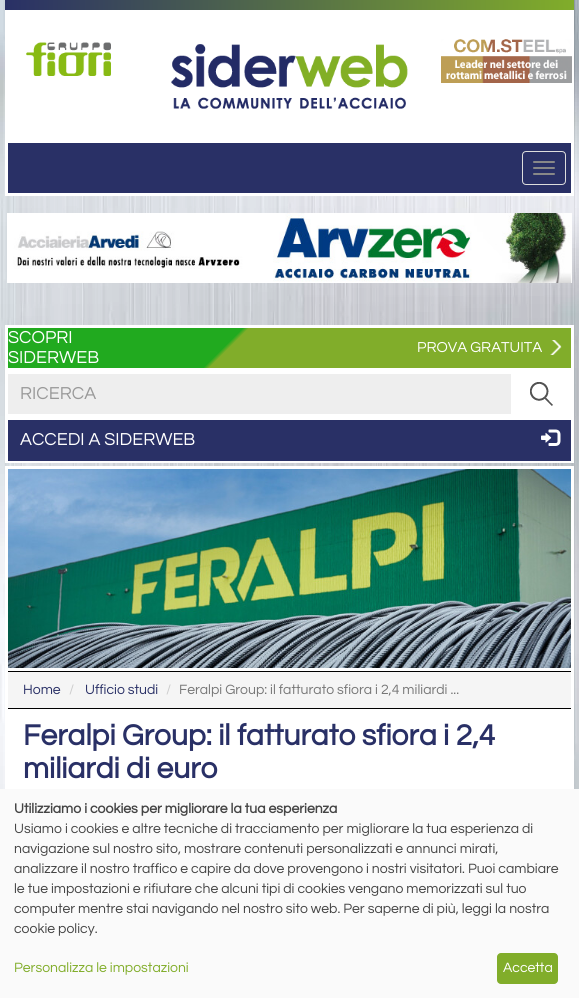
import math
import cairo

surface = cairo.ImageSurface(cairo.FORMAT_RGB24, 579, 998)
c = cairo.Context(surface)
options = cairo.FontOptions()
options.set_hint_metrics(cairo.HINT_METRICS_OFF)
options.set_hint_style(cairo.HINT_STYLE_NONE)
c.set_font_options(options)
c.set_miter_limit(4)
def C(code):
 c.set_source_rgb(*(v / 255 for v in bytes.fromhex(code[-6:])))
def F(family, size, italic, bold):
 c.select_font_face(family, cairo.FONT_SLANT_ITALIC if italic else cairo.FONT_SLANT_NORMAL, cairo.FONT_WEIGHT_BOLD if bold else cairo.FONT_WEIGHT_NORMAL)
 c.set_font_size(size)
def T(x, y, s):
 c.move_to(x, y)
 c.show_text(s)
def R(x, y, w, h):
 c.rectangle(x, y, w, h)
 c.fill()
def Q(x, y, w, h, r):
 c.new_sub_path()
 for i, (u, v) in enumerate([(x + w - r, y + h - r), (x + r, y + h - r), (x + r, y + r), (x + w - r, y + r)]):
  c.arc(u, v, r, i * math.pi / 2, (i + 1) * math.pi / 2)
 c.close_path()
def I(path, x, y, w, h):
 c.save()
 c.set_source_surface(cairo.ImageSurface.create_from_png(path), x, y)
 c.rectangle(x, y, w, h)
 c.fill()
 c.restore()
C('ffffff')
c.paint()
I('1.png',0,0,579,789)
C('ffffff')
R(5,10,569,186)
gradient = cairo.LinearGradient(5,5,574,5)
gradient.add_color_stop_rgba(0,0.161,0.188,0.4,1)
gradient.add_color_stop_rgba(1,0.506,0.678,0.165,1)
c.set_source(gradient)
R(5,0,569,10)
I('2.png',26,42,85,34)
I('3.png',171,44,237,65)
I('4.png',441,39,131,44)
C('293066')
R(8,143,563,50)
Q(522.5,151.5,43,33,3.5)
C('dddddd')
c.set_line_width(1)
c.stroke()
C('888888')
Q(533,161,22,2,1)
c.fill()
Q(533,167,22,2,1)
c.fill()
Q(533,173,22,2,1)
c.fill()
I('5.png',7,213,565,70)
C('ffffff')
R(5,325,569,138)
gradient = cairo.LinearGradient(139,197,440,499)
gradient.add_color_stop_rgba(0,0.129,0.667,0.122,1)
gradient.add_color_stop_rgba(.39,0.129,0.667,0.122,1)
gradient.add_color_stop_rgba(.4,0.506,0.678,0.165,1)
gradient.add_color_stop_rgba(1,0.506,0.678,0.165,1)
c.set_source(gradient)
R(8,328,563,40)
F('Questrial',18,0,0)
C('ffffff')
T(8,343,'SCOPRI')
T(8,363,'SIDERWEB')
F('Questrial',15,0,0)
T(417,352,'PROVA GRATUITA')
I('6.png',550,340,12,15)
C('eeeeee')
R(8,374,503,40)
F('Questrial',18,0,0)
C('999999')
T(20,399,'RICERCA')
I('7.png',530,382,23,24)
C('293066')
R(8,420,563,41)
C('ffffff')
T(20,445,'ACCEDI A SIDERWEB')
I('8.png',541,429,20,17)
R(5,466,569,323)
I('9.png',8,469,563,199)
C('f5f5f5')
R(8,672,563,36)
C('000000')
R(8,671,563,1)
R(8,708,563,1)
F('Questrial',14,0,0)
C('293066')
T(23,694,'Home')
C('cccccc')
T(69,694,'/')
C('293066')
T(85,694,'Ufficio studi')
C('cccccc')
T(166,694,'/')
C('777777')
T(179,694,'Feralpi Group: il fatturato sfiora i 2,4 miliardi ...')
F('Questrial',30,0,1)
C('293066')
T(23,745,'Feralpi Group: il fatturato sfiora i 2,4')
T(23,778,'miliardi di euro')
C('fafafa')
R(0,789,579,209)
F('Questrial',14,0,1)
C('444444')
T(14,813,'Utilizziamo i cookies per migliorare la tua esperienza')
F('Questrial',14,0,0)
T(14,833,'Usiamo i cookies e altre tecniche di tracciamento per migliorare la tua esperienza di')
T(14,853,'navigazione sul nostro sito, mostrare contenuti personalizzati e annunci mirati,')
T(14,873,'analizzare il nostro traffico e capire da dove provengono i nostri visitatori. Puoi cambiare')
T(14,893,'le tue impostazioni e rifiutare che alcuni tipi di cookies vengano memorizzati sul tuo')
T(14,913,'computer mentre stai navigando nel nostro sito web. Per saperne di più, leggi la nostra')
T(14,933,'cookie policy.')
C('81ad2a')
T(14,972,'Personalizza le impostazioni')
Q(497,953,61,31,4)
c.fill()
C('ffffff')
T(503,972,'Accetta')
surface.write_to_png('o.png')
